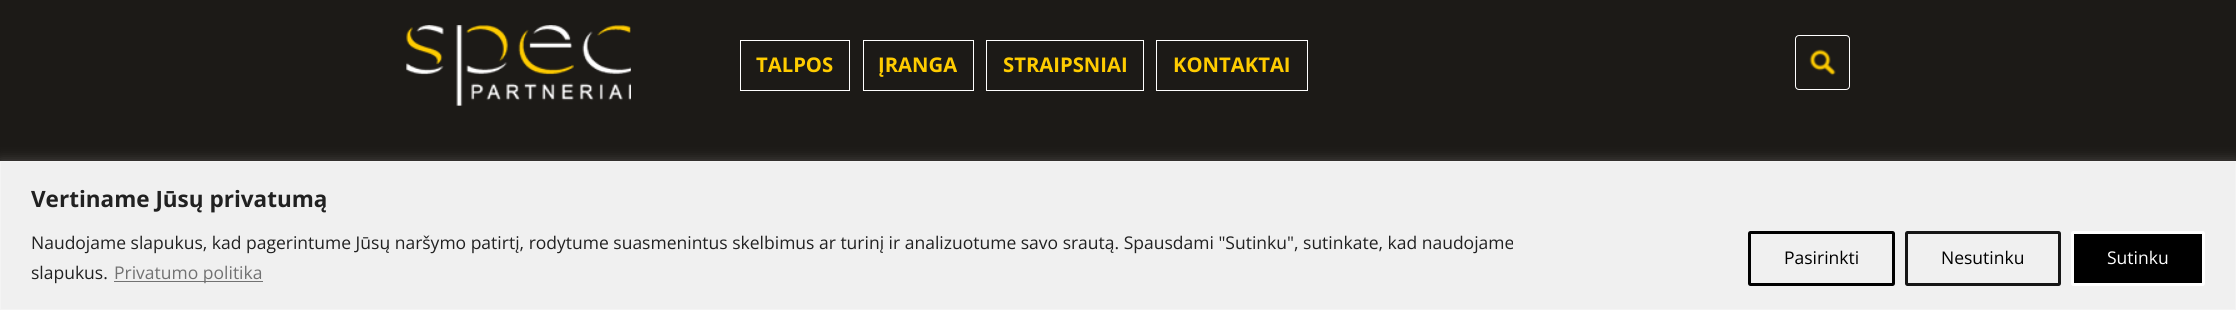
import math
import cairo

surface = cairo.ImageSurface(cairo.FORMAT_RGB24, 2236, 310)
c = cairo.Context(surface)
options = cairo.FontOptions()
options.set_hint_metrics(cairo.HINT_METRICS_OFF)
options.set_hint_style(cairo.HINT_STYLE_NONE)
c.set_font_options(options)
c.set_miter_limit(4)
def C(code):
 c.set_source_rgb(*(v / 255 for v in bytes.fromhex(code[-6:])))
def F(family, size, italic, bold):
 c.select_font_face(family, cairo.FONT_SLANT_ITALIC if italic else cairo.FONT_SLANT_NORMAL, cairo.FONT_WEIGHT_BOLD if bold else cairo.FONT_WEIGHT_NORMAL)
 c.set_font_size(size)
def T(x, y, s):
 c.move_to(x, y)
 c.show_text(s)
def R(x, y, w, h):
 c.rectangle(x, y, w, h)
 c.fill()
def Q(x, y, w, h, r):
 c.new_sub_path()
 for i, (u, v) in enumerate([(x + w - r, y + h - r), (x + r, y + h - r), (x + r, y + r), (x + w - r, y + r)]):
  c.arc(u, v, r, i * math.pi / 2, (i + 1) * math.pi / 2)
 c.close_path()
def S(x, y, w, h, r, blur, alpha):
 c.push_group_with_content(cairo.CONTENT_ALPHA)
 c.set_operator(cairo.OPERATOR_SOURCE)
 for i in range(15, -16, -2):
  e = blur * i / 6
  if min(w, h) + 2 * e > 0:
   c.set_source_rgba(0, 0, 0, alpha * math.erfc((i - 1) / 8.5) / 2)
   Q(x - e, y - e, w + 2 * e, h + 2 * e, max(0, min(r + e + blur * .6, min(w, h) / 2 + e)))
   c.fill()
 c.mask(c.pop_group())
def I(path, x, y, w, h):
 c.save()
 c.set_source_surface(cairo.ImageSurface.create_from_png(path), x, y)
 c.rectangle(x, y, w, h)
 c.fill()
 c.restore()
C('1c1a17')
c.paint()
I('1.png',406,25,225,81)
c.rectangle(740.5,40.5,109,50)
C('ffffff')
c.set_line_width(1)
c.stroke()
F('Open Sans',20.25,0,1)
C('ffcc00')
T(756,72,'TALPOS')
c.rectangle(863.5,40.5,110,50)
C('ffffff')
c.stroke()
C('ffcc00')
T(878,72,'ĮRANGA')
c.rectangle(986.5,40.5,157,50)
C('ffffff')
c.stroke()
C('ffcc00')
T(1003,72,'STRAIPSNIAI')
c.rectangle(1156.5,40.5,151,50)
C('ffffff')
c.stroke()
C('ffcc00')
T(1173,72,'KONTAKTAI')
I('2.png',1809,49,27,27)
Q(1795.5,35.5,54,54,3.5)
C('ffffff')
c.stroke()
C('acabab')
S(0,160,2236,149,0,6,.3)
C('f0f0f0')
c.rectangle(.5,161.5,2235,148)
c.fill_preserve()
C('f4f4f4')
c.stroke()
F('Open Sans',22.5,0,1)
C('212121')
T(31,207,'Vertiname Jūsų privatumą')
F('Open Sans',17.5,0,0)
T(31,249,'Naudojame slapukus, kad pagerintume Jūsų naršymo patirtį, rodytume suasmenintus skelbimus ar turinį ir analizuotume savo srautą. Spausdami "Sutinku", sutinkate, kad naudojame')
T(31,279,'slapukus.')
C('727272')
R(114,281,149,1)
T(114,279,'Privatumo politika')
Q(1749.5,232.5,144,52,1)
C('000000')
c.set_line_width(3)
c.stroke()
T(1784,264,'Pasirinkti')
Q(1906.5,232.5,153,52,1)
C('161616')
c.stroke()
C('000000')
T(1941,264,'Nesutinku')
Q(2072.5,232.5,131,52,1)
c.fill_preserve()
C('ffffff')
c.stroke()
T(2107,264,'Sutinku')
surface.write_to_png('o.png')
